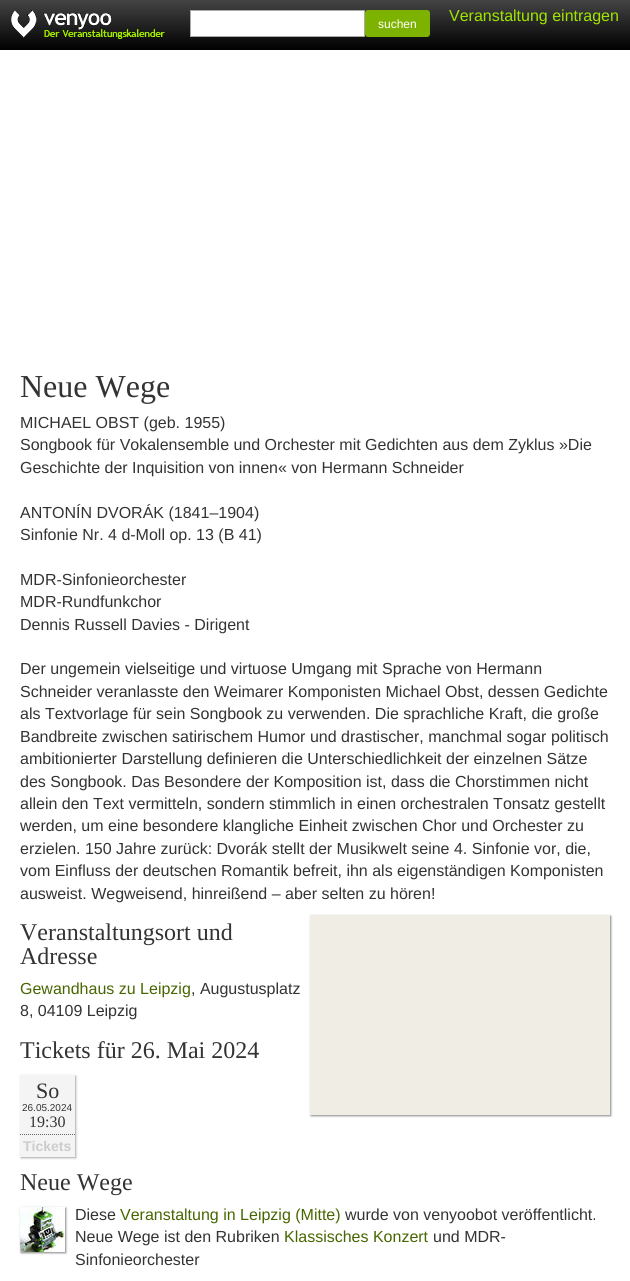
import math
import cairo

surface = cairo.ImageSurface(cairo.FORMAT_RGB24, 630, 1281)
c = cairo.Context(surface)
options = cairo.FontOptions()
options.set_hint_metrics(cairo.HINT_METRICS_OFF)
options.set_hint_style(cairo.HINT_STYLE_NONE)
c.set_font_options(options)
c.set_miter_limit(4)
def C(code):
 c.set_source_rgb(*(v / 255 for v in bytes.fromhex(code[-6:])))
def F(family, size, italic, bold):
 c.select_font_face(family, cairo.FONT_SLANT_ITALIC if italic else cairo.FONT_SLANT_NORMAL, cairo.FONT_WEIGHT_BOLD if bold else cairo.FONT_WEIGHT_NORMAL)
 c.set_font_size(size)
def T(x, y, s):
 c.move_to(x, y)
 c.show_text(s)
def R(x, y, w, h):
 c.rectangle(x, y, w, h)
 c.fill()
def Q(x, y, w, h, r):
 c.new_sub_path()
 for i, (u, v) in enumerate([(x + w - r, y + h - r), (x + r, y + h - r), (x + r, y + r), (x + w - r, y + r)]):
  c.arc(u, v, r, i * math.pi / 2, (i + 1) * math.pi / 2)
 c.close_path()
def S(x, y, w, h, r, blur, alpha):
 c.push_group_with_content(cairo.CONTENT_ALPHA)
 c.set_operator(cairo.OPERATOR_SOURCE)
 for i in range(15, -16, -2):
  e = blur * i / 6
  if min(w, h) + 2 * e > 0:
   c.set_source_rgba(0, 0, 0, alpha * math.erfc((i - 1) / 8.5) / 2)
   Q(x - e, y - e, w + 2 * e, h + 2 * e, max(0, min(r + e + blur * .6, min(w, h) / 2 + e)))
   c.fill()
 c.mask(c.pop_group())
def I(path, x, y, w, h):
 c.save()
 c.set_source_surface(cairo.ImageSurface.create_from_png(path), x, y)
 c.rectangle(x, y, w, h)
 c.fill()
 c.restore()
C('ffffff')
c.paint()
gradient = cairo.LinearGradient(315,0,315,50)
gradient.add_color_stop_rgba(0,0.267,0.267,0.267,1)
gradient.add_color_stop_rgba(1,0,0,0,1)
c.set_source(gradient)
R(0,0,630,50)
I('1.png',11,10,154,29)
C('ffffff')
c.rectangle(190.5,10.5,174,26)
c.fill_preserve()
C('aaaaaa')
c.set_line_width(1)
c.stroke()
C('7db300')
Q(365.5,10.5,64,26,2.5)
c.fill_preserve()
c.stroke()
F('Liberation Sans',12,0,0)
C('ffffff')
T(378,28,'suchen')
F('Liberation Sans',16,0,0)
C('a1e500')
T(449,21,'Veranstaltung eintragen')
F('Liberation Serif',32,0,0)
C('333333')
T(20,397,'Neue Wege')
F('Liberation Sans',16,0,0)
T(20,428,'MICHAEL OBST (geb. 1955)')
T(20,450,'Songbook für Vokalensemble und Orchester mit Gedichten aus dem Zyklus »Die')
T(20,473,'Geschichte der Inquisition von innen« von Hermann Schneider')
T(20,518,'ANTONÍN DVORÁK (1841–1904)')
T(20,540,'Sinfonie Nr. 4 d-Moll op. 13 (B 41)')
T(20,585,'MDR-Sinfonieorchester')
T(20,607,'MDR-Rundfunkchor')
T(20,630,'Dennis Russell Davies - Dirigent')
T(20,674,'Der ungemein vielseitige und virtuose Umgang mit Sprache von Hermann')
T(20,697,'Schneider veranlasste den Weimarer Komponisten Michael Obst, dessen Gedichte')
T(20,719,'als Textvorlage für sein Songbook zu verwenden. Die sprachliche Kraft, die große')
T(20,742,'Bandbreite zwischen satirischem Humor und drastischer, manchmal sogar politisch')
T(20,764,'ambitionierter Darstellung definieren die Unterschiedlichkeit der einzelnen Sätze')
T(20,787,'des Songbook. Das Besondere der Komposition ist, dass die Chorstimmen nicht')
T(20,809,'allein den Text vermitteln, sondern stimmlich in einen orchestralen Tonsatz gestellt')
T(20,831,'werden, um eine besondere klangliche Einheit zwischen Chor und Orchester zu')
T(20,854,'erzielen. 150 Jahre zurück: Dvorák stellt der Musikwelt seine 4. Sinfonie vor, die,')
T(20,876,'vom Einfluss der deutschen Romantik befreit, ihn als eigenständigen Komponisten')
T(20,899,'ausweist. Wegweisend, hinreißend – aber selten zu hören!')
F('Liberation Serif',24,0,0)
T(20,940,'Veranstaltungsort und')
T(20,964,'Adresse')
C('888888')
S(311,916,300,200,0,1,1)
C('f0ede5')
R(310,915,300,200)
F('Liberation Sans',16,0,0)
C('476600')
T(20,994,'Gewandhaus zu Leipzig')
C('333333')
T(191,994,', Augustusplatz')
T(20,1016,'8, 04109 Leipzig')
F('Liberation Serif',24,0,0)
T(20,1058,'Tickets für 26. Mai 2024')
C('aaaaaa')
S(21,1076,55,82,0,1,1)
C('f4f4f4')
R(20,1075,55,82)
F('Liberation Serif',22,0,0)
C('333333')
T(36,1098,'So')
F('Liberation Sans',10,0,0)
T(22,1111,'26.05.2024')
F('Liberation Serif',16,0,0)
T(29,1127,'19:30')
c.new_path()
c.move_to(20,1134.5)
c.line_to(75,1134.5)
C('666666')
c.set_dash([1,1])
c.stroke()
F('Liberation Sans',14,0,1)
C('cccccc')
T(23,1151,'Tickets')
F('Liberation Serif',24,0,0)
C('333333')
T(20,1190,'Neue Wege')
C('888888')
S(21,1208,45,45,0,1,1)
I('2.png',20,1207,45,45)
F('Liberation Sans',16,0,0)
C('333333')
T(75,1220,'Diese')
C('476600')
T(120,1220,'Veranstaltung in Leipzig (Mitte)')
C('333333')
T(345,1220,'wurde von venyoobot veröffentlicht.')
T(75,1242,'Neue Wege ist den Rubriken')
C('476600')
T(284,1242,'Klassisches Konzert')
C('333333')
T(433,1242,'und MDR-')
T(75,1265,'Sinfonieorchester')
surface.write_to_png('o.png')
